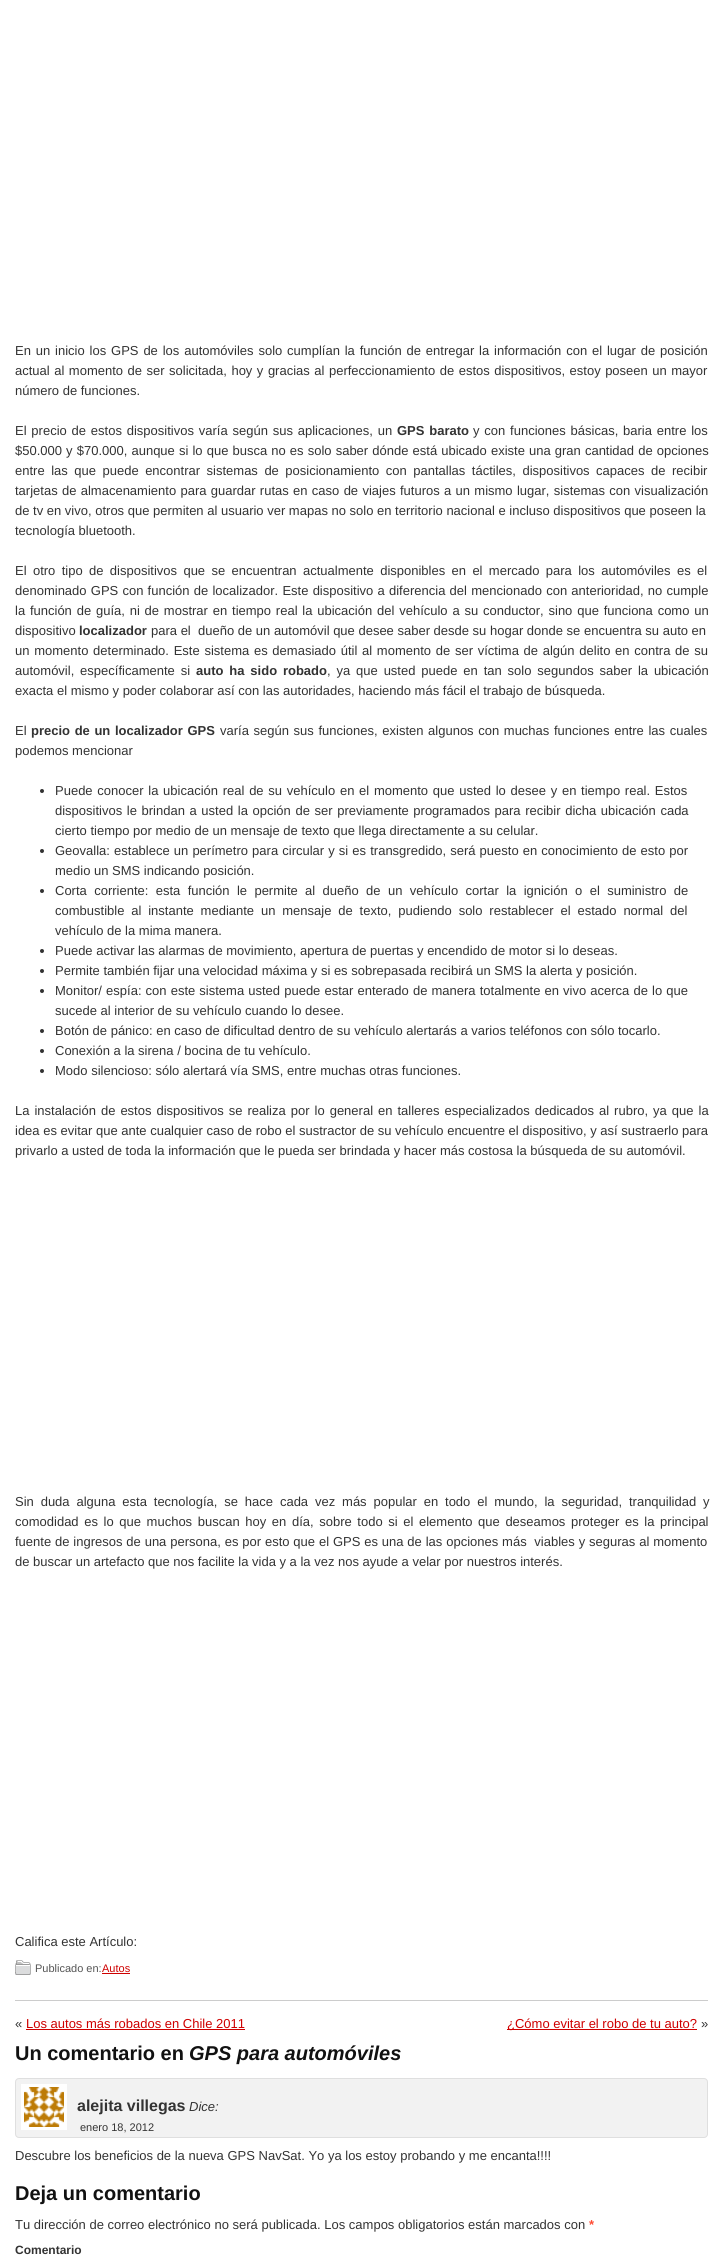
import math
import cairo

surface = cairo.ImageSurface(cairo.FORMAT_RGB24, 723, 2255)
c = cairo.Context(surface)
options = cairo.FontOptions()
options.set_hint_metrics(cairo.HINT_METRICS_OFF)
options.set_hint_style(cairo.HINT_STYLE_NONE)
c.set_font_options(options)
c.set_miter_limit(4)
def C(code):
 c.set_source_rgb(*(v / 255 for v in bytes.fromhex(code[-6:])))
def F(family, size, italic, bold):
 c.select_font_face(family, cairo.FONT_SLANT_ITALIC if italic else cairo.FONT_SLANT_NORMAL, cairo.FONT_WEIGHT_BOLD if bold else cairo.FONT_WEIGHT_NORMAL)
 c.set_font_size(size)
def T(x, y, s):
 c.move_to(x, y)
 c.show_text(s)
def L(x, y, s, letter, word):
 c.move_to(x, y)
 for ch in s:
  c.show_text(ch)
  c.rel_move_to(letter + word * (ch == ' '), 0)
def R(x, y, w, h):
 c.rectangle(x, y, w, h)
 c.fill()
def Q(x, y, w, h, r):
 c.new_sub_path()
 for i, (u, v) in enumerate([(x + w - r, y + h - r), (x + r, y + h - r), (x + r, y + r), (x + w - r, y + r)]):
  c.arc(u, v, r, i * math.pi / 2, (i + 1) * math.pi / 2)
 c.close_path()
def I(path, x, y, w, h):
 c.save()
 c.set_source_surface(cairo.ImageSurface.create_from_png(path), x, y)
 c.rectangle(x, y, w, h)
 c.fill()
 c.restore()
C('ffffff')
c.paint()
C('cccccc')
R(15,2000,693,1)
F('Liberation Sans',13,0,0)
C('333333')
L(15,355,'En un inicio los GPS de los automóviles solo cumplían la función de entregar la información con el lugar de posición',0,1.25)
L(15,375,'actual al momento de ser solicitada, hoy y gracias al perfeccionamiento de estos dispositivos, estoy poseen un mayor',0,.9)
T(15,395,'número de funciones.')
L(15,435,'El precio de estos dispositivos varía según sus aplicaciones, un',0,1.2)
F('Liberation Sans',13,0,1)
L(397,435,'GPS barato',0,1.2)
F('Liberation Sans',13,0,0)
L(473,435,'y con funciones básicas, baria entre los',0,1.2)
L(15,455,'$50.000 y $70.000, aunque si lo que busca no es solo saber dónde está ubicado existe una gran cantidad de opciones',0,.5)
L(15,475,'entre las que puede encontrar sistemas de posicionamiento con pantallas táctiles, dispositivos capaces de recibir',0,2.9)
L(15,495,'tarjetas de almacenamiento para guardar rutas en caso de viajes futuros a un mismo lugar, sistemas con visualización',0,.7)
T(15,515,'de tv en vivo, otros que permiten al usuario ver mapas no solo en territorio nacional e incluso dispositivos que poseen la')
T(15,535,'tecnología bluetooth.')
L(15,575,'El otro tipo de dispositivos que se encuentran actualmente disponibles en el mercado para los automóviles es el',0,2.75)
L(15,595,'denominado GPS con función de localizador. Este dispositivo a diferencia del mencionado con anterioridad, no cumple',0,.6)
L(15,615,'la función de guía, ni de mostrar en tiempo real la ubicación del vehículo a su conductor, sino que funciona como un',0,1.2)
T(15,635,'dispositivo')
F('Liberation Sans',13,0,1)
T(79,635,'localizador')
F('Liberation Sans',13,0,0)
T(151,635,'para el  dueño de un automóvil que desee saber desde su hogar donde se encuentra su auto en')
L(15,655,'un momento determinado. Este sistema es demasiado útil al momento de ser víctima de algún delito en contra de su',0,1.1)
L(15,675,'automóvil, específicamente si',0,2.25)
F('Liberation Sans',13,0,1)
L(196,675,'auto ha sido robado',0,2.25)
F('Liberation Sans',13,0,0)
L(327,675,', ya que usted puede en tan solo segundos saber la ubicación',0,2.25)
T(15,695,'exacta el mismo y poder colaborar así con las autoridades, haciendo más fácil el trabajo de búsqueda.')
T(15,735,'El')
F('Liberation Sans',13,0,1)
L(31,735,'precio de un localizador GPS',0,1)
F('Liberation Sans',13,0,0)
L(220,735,'varía según sus funciones, existen algunos con muchas funciones entre las cuales',0,1)
T(15,755,'podemos mencionar')
c.new_path()
c.arc(42,791,2,0,2 * math.pi)
c.fill()
L(55,795,'Puede conocer la ubicación real de su vehículo en el momento que usted lo desee y en tiempo real. Estos',0,1.1)
L(55,815,'dispositivos le brindan a usted la opción de ser previamente programados para recibir dicha ubicación cada',0,1)
T(55,835,'cierto tiempo por medio de un mensaje de texto que llega directamente a su celular.')
c.new_path()
c.arc(42,851,2,0,2 * math.pi)
c.fill()
L(55,855,'Geovalla: establece un perímetro para circular y si es transgredido, será puesto en conocimiento de esto por',0,.5)
T(55,875,'medio un SMS indicando posición.')
c.new_path()
c.arc(42,891,2,0,2 * math.pi)
c.fill()
L(55,895,'Corta corriente: esta función le permite al dueño de un vehículo cortar la ignición o el suministro de',0,3.75)
L(55,915,'combustible al instante mediante un mensaje de texto, pudiendo solo restablecer el estado normal del',0,3.25)
T(55,935,'vehículo de la mima manera.')
c.new_path()
c.arc(42,951,2,0,2 * math.pi)
c.fill()
T(55,955,'Puede activar las alarmas de movimiento, apertura de puertas y encendido de motor si lo deseas.')
c.new_path()
c.arc(42,971,2,0,2 * math.pi)
c.fill()
T(55,975,'Permite también fijar una velocidad máxima y si es sobrepasada recibirá un SMS la alerta y posición.')
c.new_path()
c.arc(42,991,2,0,2 * math.pi)
c.fill()
L(55,995,'Monitor/ espía: con este sistema usted puede estar enterado de manera totalmente en vivo acerca de lo que',0,.5)
T(55,1015,'sucede al interior de su vehículo cuando lo desee.')
c.new_path()
c.arc(42,1031,2,0,2 * math.pi)
c.fill()
T(55,1035,'Botón de pánico: en caso de dificultad dentro de su vehículo alertarás a varios teléfonos con sólo tocarlo.')
c.new_path()
c.arc(42,1051,2,0,2 * math.pi)
c.fill()
T(55,1055,'Conexión a la sirena / bocina de tu vehículo.')
c.new_path()
c.arc(42,1071,2,0,2 * math.pi)
c.fill()
T(55,1075,'Modo silencioso: sólo alertará vía SMS, entre muchas otras funciones.')
L(15,1115,'La instalación de estos dispositivos se realiza por lo general en talleres especializados dedicados al rubro, ya que la',0,1.4)
T(15,1135,'idea es evitar que ante cualquier caso de robo el sustractor de su vehículo encuentre el dispositivo, y así sustraerlo para')
T(15,1155,'privarlo a usted de toda la información que le pueda ser brindada y hacer más costosa la búsqueda de su automóvil.')
L(15,1506,'Sin duda alguna esta tecnología, se hace cada vez más popular en todo el mundo, la seguridad, tranquilidad y',0,3.25)
L(15,1526,'comodidad es lo que muchos buscan hoy en día, sobre todo si el elemento que deseamos proteger es la principal',0,2)
L(15,1546,'fuente de ingresos de una persona, es por esto que el GPS es una de las opciones más  viables y seguras al momento',0,.25)
T(15,1566,'de buscar un artefacto que nos facilite la vida y a la vez nos ayude a velar por nuestros interés.')
T(15,1946,'Califica este Artículo:')
I('1.png',15,1960,16,15)
F('Liberation Sans',11,0,0)
C('555555')
T(35,1972,'Publicado en:')
C('ce0000')
T(102,1972,'Autos')
R(102,1973,28,1)
F('Liberation Sans',13,0,0)
C('333333')
T(15,2028,'«')
C('ce0000')
T(26,2028,'Los autos más robados en Chile 2011')
R(26,2029,219,1)
R(507,2029,190,1)
T(507,2028,'¿Cómo evitar el robo de tu auto?')
C('333333')
T(701,2028,'»')
F('Liberation Sans',20,0,1)
C('111111')
T(15,2060,'Un comentario en')
F('Liberation Sans',20,1,1)
T(189,2060,'GPS para automóviles')
C('f2f2f2')
Q(15.5,2078.5,692,59,3.5)
c.fill_preserve()
C('dfdfdf')
c.set_line_width(1)
c.stroke()
c.rectangle(22.5,2085.5,43,43)
C('ffffff')
c.set_line_width(3)
c.stroke()
I('2.png',24,2087,40,40)
F('Liberation Sans',16,0,1)
C('333333')
T(77,2111,'alejita villegas')
F('Liberation Sans',13,1,0)
T(189,2111,'Dice:')
F('Liberation Sans',11,0,0)
T(80,2131,'enero 18, 2012')
F('Liberation Sans',13,0,0)
T(15,2160,'Descubre los beneficios de la nueva GPS NavSat. Yo ya los estoy probando y me encanta!!!!')
F('Liberation Sans',20,0,1)
C('111111')
T(15,2200,'Deja un comentario')
F('Liberation Sans',13,0,0)
C('333333')
T(15,2229,'Tu dirección de correo electrónico no será publicada. Los campos obligatorios están marcados con')
F('Liberation Sans',13,0,1)
C('ff4b33')
T(589,2229,'*')
F('Liberation Sans',12,0,1)
C('333333')
T(15,2254,'Comentario')
surface.write_to_png('o.png')
